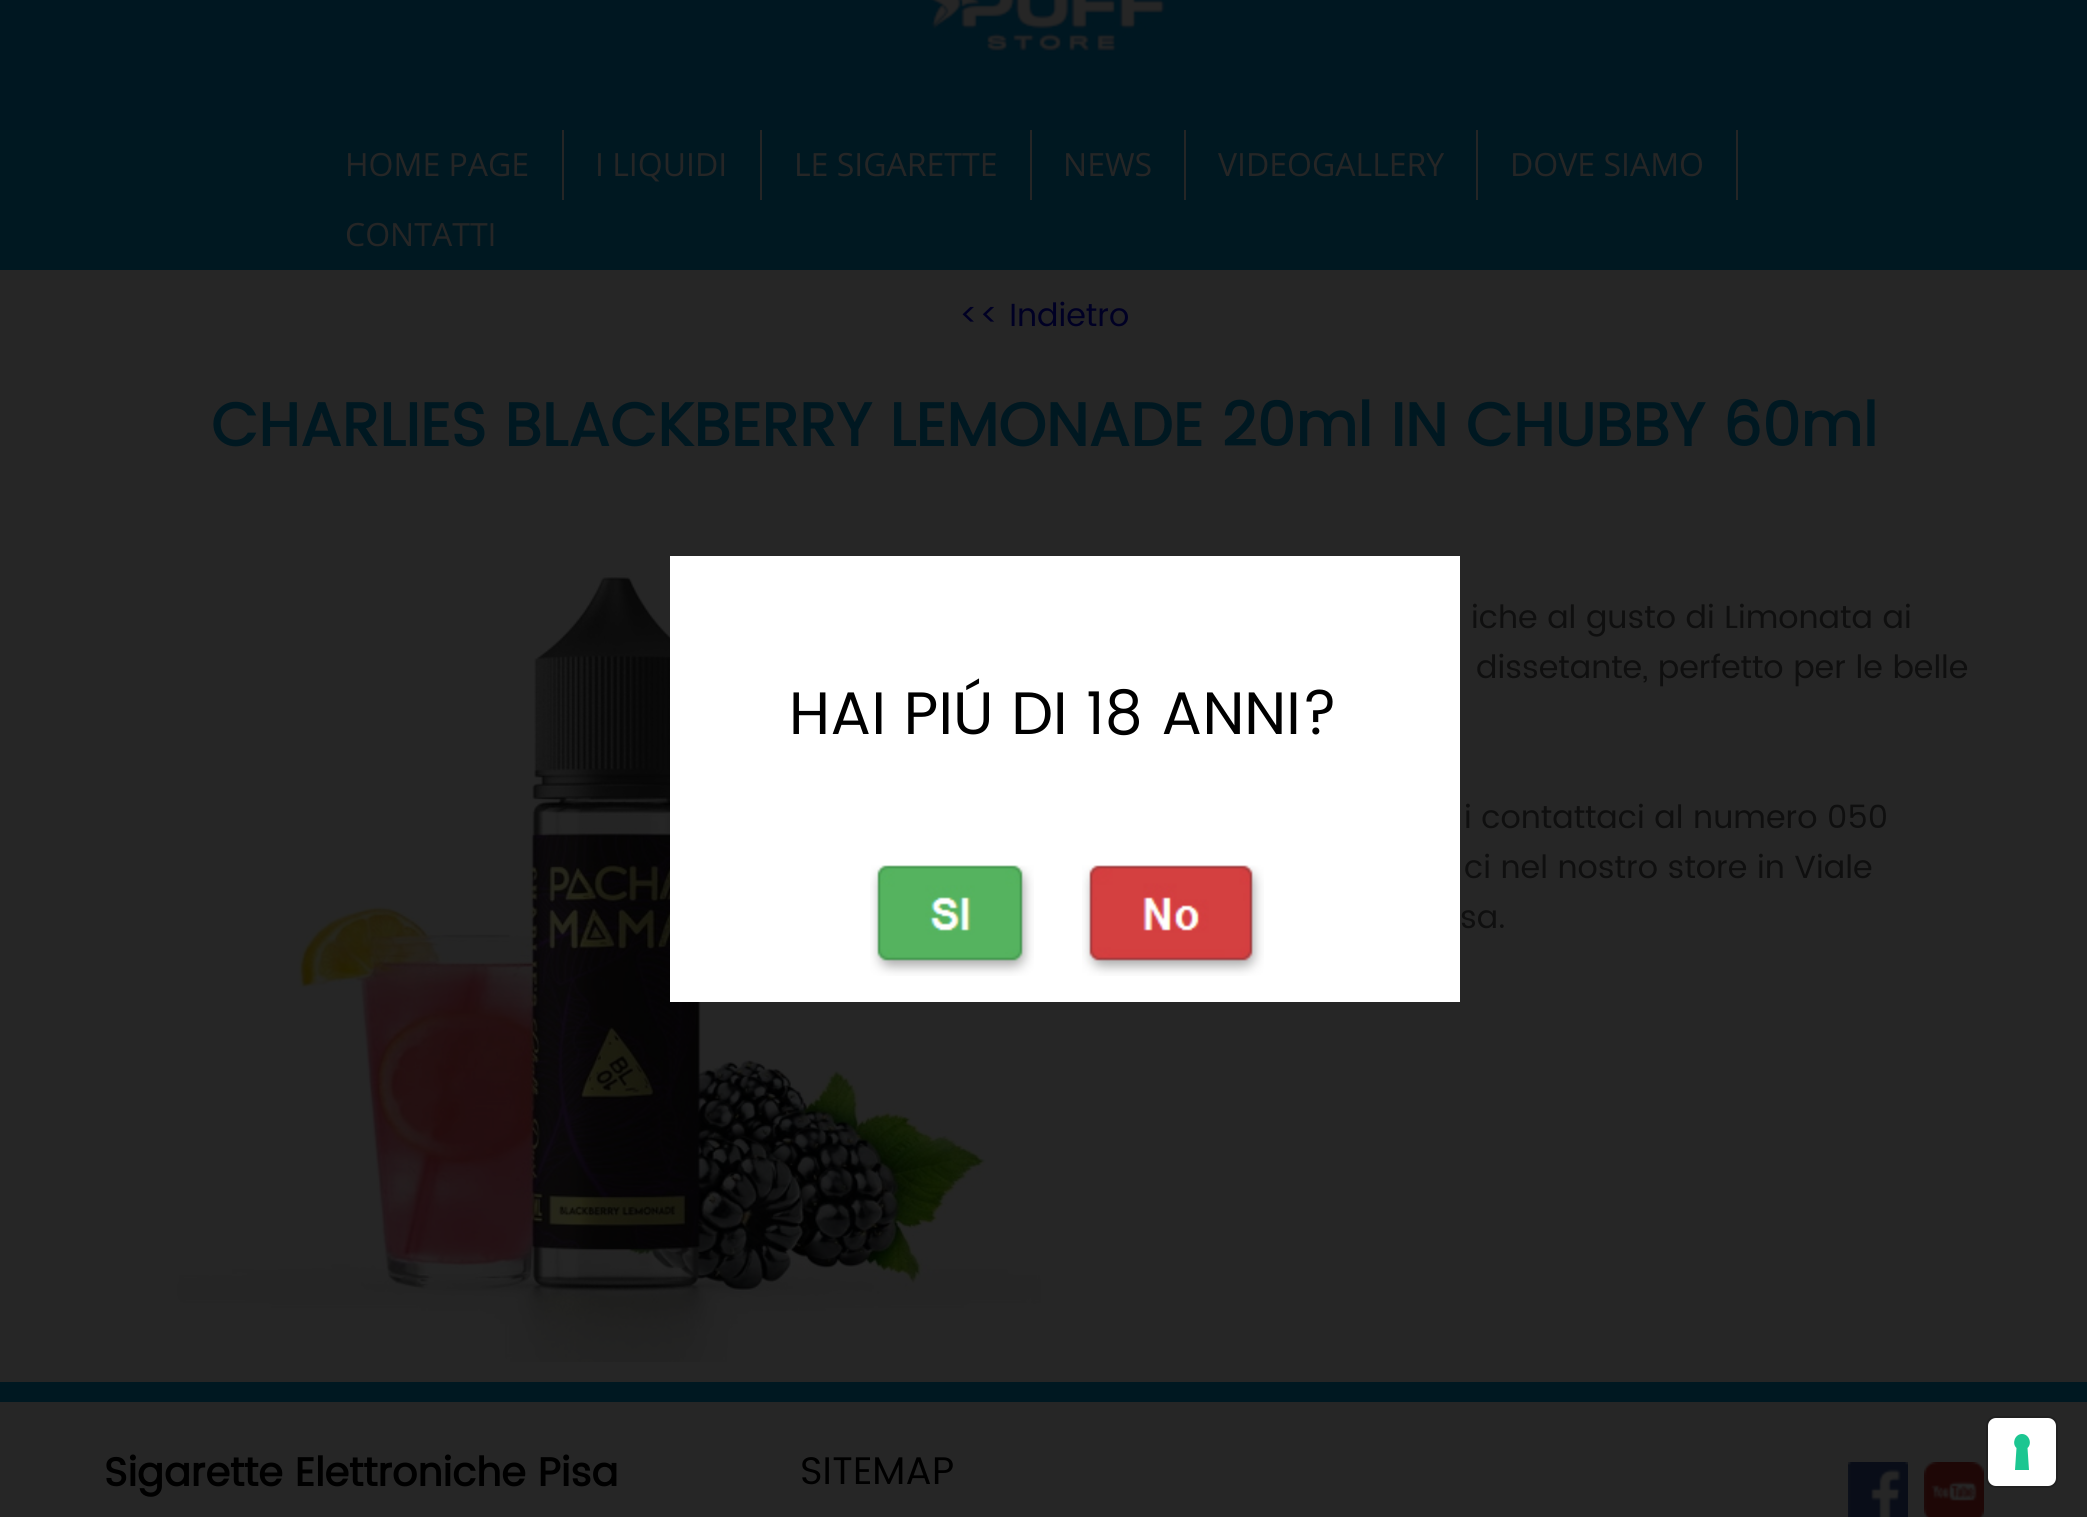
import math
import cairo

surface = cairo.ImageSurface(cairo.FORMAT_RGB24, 2087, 1517)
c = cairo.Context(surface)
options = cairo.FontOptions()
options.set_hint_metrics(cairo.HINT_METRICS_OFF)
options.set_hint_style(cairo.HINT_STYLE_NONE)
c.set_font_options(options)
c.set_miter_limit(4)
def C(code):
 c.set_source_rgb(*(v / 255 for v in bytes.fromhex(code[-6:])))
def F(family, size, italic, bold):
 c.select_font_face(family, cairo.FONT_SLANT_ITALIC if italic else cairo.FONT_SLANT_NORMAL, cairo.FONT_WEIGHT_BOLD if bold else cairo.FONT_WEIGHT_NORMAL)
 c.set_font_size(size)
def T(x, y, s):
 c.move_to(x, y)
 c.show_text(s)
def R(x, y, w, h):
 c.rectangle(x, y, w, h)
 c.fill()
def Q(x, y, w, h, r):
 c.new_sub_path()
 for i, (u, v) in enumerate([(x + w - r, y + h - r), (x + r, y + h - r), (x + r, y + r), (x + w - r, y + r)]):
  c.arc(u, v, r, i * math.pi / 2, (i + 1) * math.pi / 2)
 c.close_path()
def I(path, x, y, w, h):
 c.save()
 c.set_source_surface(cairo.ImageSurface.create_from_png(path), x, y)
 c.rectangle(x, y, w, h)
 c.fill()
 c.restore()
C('262626')
c.paint()
C('001721')
R(0,0,2087,130)
I('1.png',930,0,235,52)
C('001821')
R(0,130,2087,140)
C('262626')
R(562,130,2,70)
F('Open Sans',32,0,0)
T(345,176,'HOME PAGE')
R(760,130,2,70)
T(595,176,'I LIQUIDI')
R(1030,130,2,70)
T(794,176,'LE SIGARETTE')
R(1184,130,2,70)
T(1063,176,'NEWS')
R(1476,130,2,70)
T(1218,176,'VIDEOGALLERY')
R(1736,130,2,70)
T(1510,176,'DOVE SIAMO')
T(345,246,'CONTATTI')
F('Poppins',32,0,0)
C('000024')
T(959,326,'<< Indietro')
F('Poppins',60.8,0,1)
C('001821')
T(211,446,'CHARLIES BLACKBERRY LEMONADE 20ml IN CHUBBY 60ml')
I('2.png',177,574,864,788)
F('Poppins',32,0,0)
C('0f0f0f')
T(1471,628,'iche al gusto di Limonata ai')
T(1476,678,'dissetante, perfetto per le belle')
T(1464,828,'i contattaci al numero 050')
T(1464,878,'ci nel nostro store in Viale')
T(1460,928,'sa.')
C('001821')
R(0,1382,2087,20)
F('Poppins',40,0,1)
C('000000')
T(104,1486,'Sigarette Elettroniche Pisa')
F('Poppins',38.5,0,0)
T(800,1484,'SITEMAP')
I('3.png',1848,1462,60,55)
I('4.png',1924,1462,60,55)
C('ffffff')
R(670,556,790,446)
F('Poppins',60,0,0)
C('000000')
T(789,734,'HAI PIÚ DI 18 ANNI?')
I('5.png',870,865,164,111)
I('6.png',1082,865,182,111)
Q(1987,1417,70,70,9)
C('202020')
c.stroke()
C('ffffff')
Q(1988,1418,68,68,8)
c.fill()
C('1cc691')
c.set_fill_rule(cairo.FILL_RULE_EVEN_ODD)
c.new_path()
c.move_to(2022,1434)
c.curve_to(2029,1434,2032.5,1443.5,2027.5,1448)
c.line_to(2029,1470)
c.line_to(2015,1470)
c.line_to(2016.5,1448)
c.curve_to(2011.5,1443.5,2015,1434,2022,1434)
c.close_path()
c.fill()
surface.write_to_png('o.png')
